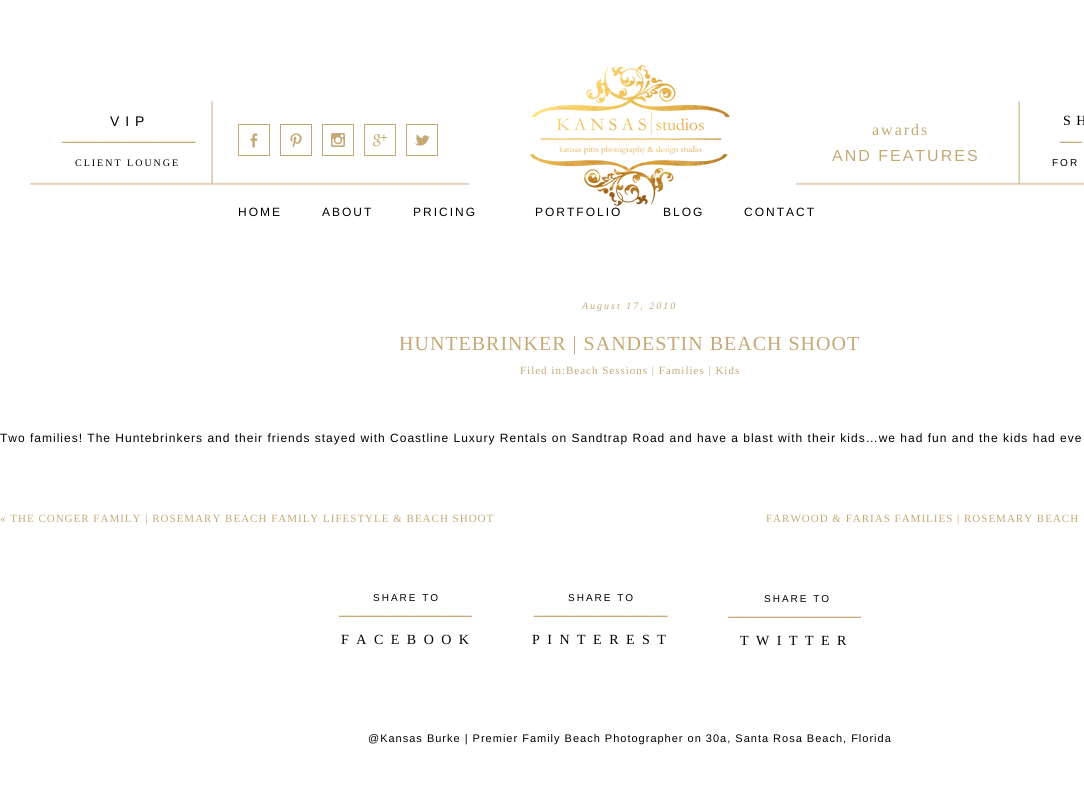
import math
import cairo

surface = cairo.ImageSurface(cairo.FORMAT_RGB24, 1084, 788)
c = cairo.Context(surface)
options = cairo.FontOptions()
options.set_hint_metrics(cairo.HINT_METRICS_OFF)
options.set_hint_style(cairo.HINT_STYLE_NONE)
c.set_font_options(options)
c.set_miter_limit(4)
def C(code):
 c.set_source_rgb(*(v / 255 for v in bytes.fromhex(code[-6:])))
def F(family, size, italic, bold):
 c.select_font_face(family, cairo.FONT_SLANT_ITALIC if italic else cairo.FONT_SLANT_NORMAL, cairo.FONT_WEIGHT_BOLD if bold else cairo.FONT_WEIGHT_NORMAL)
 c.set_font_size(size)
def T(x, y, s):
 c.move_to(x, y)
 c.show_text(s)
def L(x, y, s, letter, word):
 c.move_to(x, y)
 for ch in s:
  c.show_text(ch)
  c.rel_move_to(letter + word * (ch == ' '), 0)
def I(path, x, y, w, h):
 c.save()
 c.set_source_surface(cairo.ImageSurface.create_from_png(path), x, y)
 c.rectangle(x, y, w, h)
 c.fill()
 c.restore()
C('ffffff')
c.paint()
I('1.png',30,100,1054,85)
F('Liberation Sans',14,0,0)
C('000000')
L(110,126,'V I P',1,0)
F('Liberation Sans',20,0,0)
C('c5a975')
T(62,139,'____________')
F('Liberation Serif',10,0,0)
C('000000')
L(75,166,'CLIENT LOUNGE',2,0)
c.rectangle(238.5,124.5,31,31)
C('c5a975')
c.set_line_width(1)
c.stroke()
I('2.png',250,133,8,15)
c.rectangle(280.5,124.5,31,31)
c.stroke()
I('3.png',290,133,12,15)
c.rectangle(322.5,124.5,31,31)
c.stroke()
I('4.png',331,133,14,14)
c.rectangle(364.5,124.5,31,31)
c.stroke()
I('5.png',373,134,14,13)
c.rectangle(406.5,124.5,31,31)
c.stroke()
I('6.png',414,134,16,12)
I('7.png',530,65,200,141)
F('Liberation Serif',16,0,0)
L(872,135,'awards',2,0)
F('Liberation Sans',16,0,0)
L(832,161,'AND FEATURES',2,0)
F('Liberation Serif',14,0,0)
C('000000')
L(1063,125,'S H',1,0)
F('Liberation Sans',20,0,0)
C('c5a975')
T(1060,139,'__')
F('Liberation Sans',10,0,0)
C('000000')
L(1052,166,'FOR',2,0)
F('Liberation Sans',12,0,0)
L(238,216,'HOME',2,0)
L(322,216,'ABOUT',2,0)
L(413,216,'PRICING',2,0)
L(535,216,'PORTFOLIO',2,0)
L(663,216,'BLOG',2,0)
L(744,216,'CONTACT',2,0)
F('Liberation Serif',10,1,0)
C('c5a975')
L(582,309,'August 17, 2010',2,0)
F('Liberation Serif',20,0,0)
L(399,350,'HUNTEBRINKER | SANDESTIN BEACH SHOOT',1,0)
F('Liberation Serif',11,0,0)
L(520,374,'Filed in:Beach Sessions | Families | Kids',1,0)
F('Liberation Sans',12,0,0)
C('000000')
L(0,442,'Two families! The Huntebrinkers and their friends stayed with Coastline Luxury Rentals on Sandtrap Road and have a blast with their kids…we had fun and the kids had eve',1,0)
F('Liberation Serif',11,0,0)
C('c5a975')
L(0,522,'« THE CONGER FAMILY | ROSEMARY BEACH FAMILY LIFESTYLE & BEACH SHOOT',1,0)
L(766,522,'FARWOOD & FARIAS FAMILIES | ROSEMARY BEACH',1,0)
F('Liberation Sans',10,0,0)
C('000000')
L(373,601,'SHARE TO',2,0)
c.save()
c.rectangle(339,568,133,93)
c.clip()
F('Liberation Sans',20,0,0)
C('c5a975')
T(339,613,'____________')
c.restore()
F('Liberation Serif',14,0,0)
L(341,644,'F A C E B O O K',2,0)
F('Liberation Sans',10,0,0)
L(568,601,'SHARE TO',2,0)
F('Liberation Sans',20,0,0)
C('c5a975')
T(534,613,'____________')
F('Liberation Serif',14,0,0)
C('000000')
L(532,644,'P I N T E R E S T',2,0)
F('Liberation Sans',10,0,0)
L(764,602,'SHARE TO',2,0)
c.save()
c.rectangle(728,569,133,92)
c.clip()
F('Liberation Sans',20,0,0)
C('c5a975')
T(728,614,'____________')
c.restore()
F('Liberation Serif',14,0,0)
L(740,645,'T W I T T E R',2,0)
F('Liberation Sans',11,0,0)
L(368,742,'@Kansas Burke | Premier Family Beach Photographer on 30a, Santa Rosa Beach, Florida',1,0)
surface.write_to_png('o.png')
